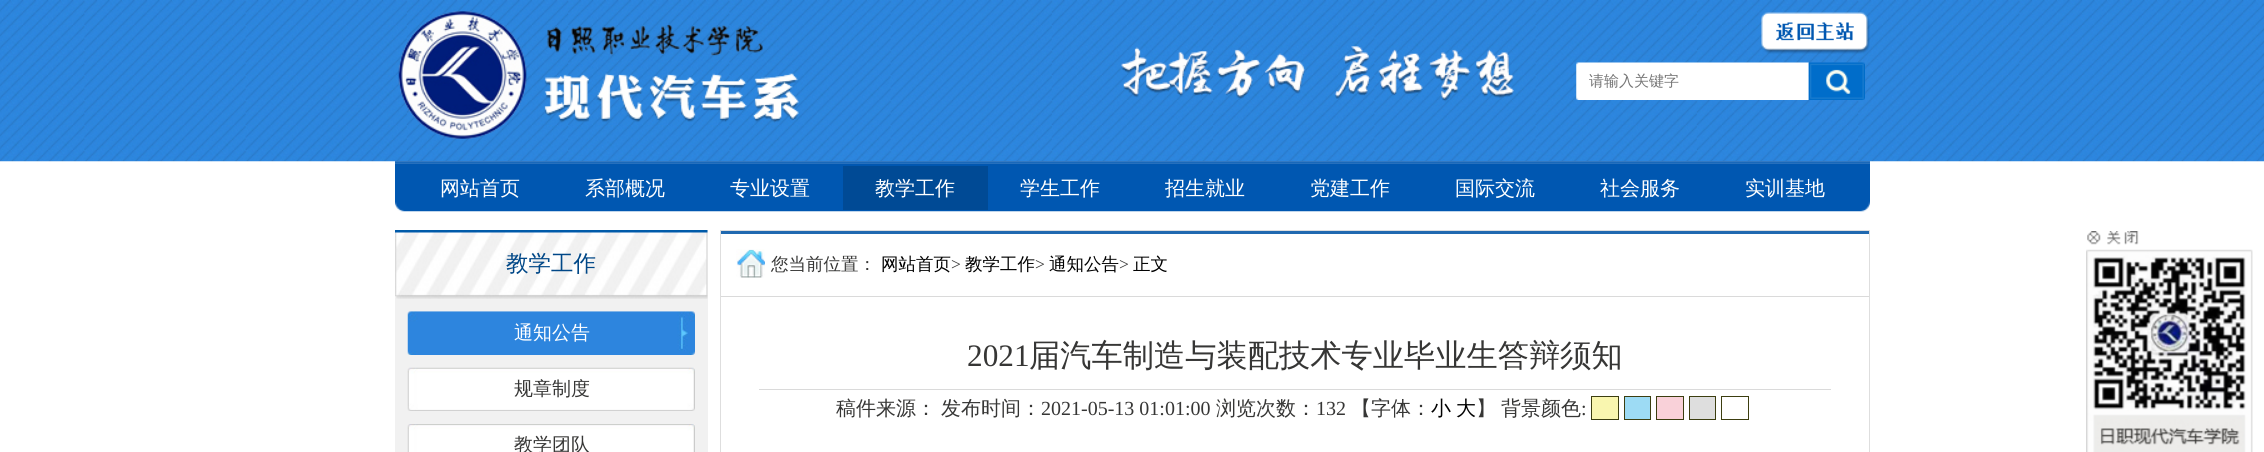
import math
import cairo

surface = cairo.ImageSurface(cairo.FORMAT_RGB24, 2264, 452)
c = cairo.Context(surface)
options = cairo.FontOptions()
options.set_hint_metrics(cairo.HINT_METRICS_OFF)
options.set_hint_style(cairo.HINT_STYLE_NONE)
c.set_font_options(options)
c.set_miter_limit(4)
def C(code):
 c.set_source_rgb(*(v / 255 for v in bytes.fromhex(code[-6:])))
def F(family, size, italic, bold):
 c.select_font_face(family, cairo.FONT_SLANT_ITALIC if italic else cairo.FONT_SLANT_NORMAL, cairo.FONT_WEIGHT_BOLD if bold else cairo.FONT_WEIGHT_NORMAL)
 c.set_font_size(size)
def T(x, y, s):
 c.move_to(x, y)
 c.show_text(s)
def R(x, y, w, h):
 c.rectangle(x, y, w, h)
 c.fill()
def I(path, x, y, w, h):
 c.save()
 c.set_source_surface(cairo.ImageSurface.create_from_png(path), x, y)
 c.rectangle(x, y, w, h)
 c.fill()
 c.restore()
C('ffffff')
c.paint()
I('1.png',0,0,2264,162)
I('2.png',398,11,1116,128)
I('3.png',1761,12,109,42)
I('4.png',1576,62,233,38)
F('WenQuanYi Zen Hei Medium',15,0,0)
C('757575')
T(1589,86,'请输入关键字')
I('5.png',1808,62,57,38)
I('6.png',2086,249,167,203)
I('7.png',2087,231,52,14)
I('8.png',395,161,1475,51)
F('WenQuanYi Zen Hei Medium',20,0,0)
C('ffffff')
T(440,195,'网站首页')
T(585,195,'系部概况')
T(730,195,'专业设置')
C('004a95')
R(843,166,145,44)
C('ffffff')
T(875,195,'教学工作')
T(1020,195,'学生工作')
T(1165,195,'招生就业')
T(1310,195,'党建工作')
T(1455,195,'国际交流')
T(1600,195,'社会服务')
T(1745,195,'实训基地')
C('f1f1f1')
R(395,230,313,222)
I('9.png',395,230,313,69)
F('WenQuanYi Zen Hei Medium',22.5,0,0)
C('004787')
T(506,271,'教学工作')
I('10.png',407,311,288,44)
F('WenQuanYi Zen Hei Medium',19,0,0)
C('ffffff')
T(514,339,'通知公告')
I('11.png',407,367,288,44)
C('363635')
T(514,395,'规章制度')
I('12.png',407,424,288,28)
T(514,451,'教学团队')
c.rectangle(720.5,230.5,1149,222)
C('dedede')
c.set_line_width(1)
c.stroke()
C('2069b0')
R(721,231,1148,3)
C('dadada')
R(721,296,1148,1)
I('13.png',736,249,29,29)
F('WenQuanYi Zen Hei Medium',17.5,0,0)
C('363635')
T(771,270,'您当前位置：')
C('000000')
T(881,270,'网站首页')
F('Liberation Serif',17.5,0,0)
C('363635')
T(951,270,'>')
F('WenQuanYi Zen Hei Medium',17.5,0,0)
C('000000')
T(965,270,'教学工作')
F('Liberation Serif',17.5,0,0)
C('363635')
T(1035,270,'>')
F('WenQuanYi Zen Hei Medium',17.5,0,0)
C('000000')
T(1049,270,'通知公告')
F('Liberation Serif',17.5,0,0)
C('363635')
T(1119,270,'>')
F('WenQuanYi Zen Hei Medium',17.5,0,0)
C('000000')
T(1133,270,'正文')
F('Liberation Serif',31.25,0,0)
C('363635')
T(967,366,'2021')
F('WenQuanYi Zen Hei Medium',31.25,0,0)
T(1029,366,'届汽车制造与装配技术专业毕业生答辩须知')
C('dadada')
R(759,389,1072,1)
F('WenQuanYi Zen Hei Medium',20,0,0)
C('363635')
T(836,415,'稿件来源：')
T(941,415,'发布时间：')
F('Liberation Serif',20,0,0)
T(1041,415,'2021-05-13 01:01:00')
F('WenQuanYi Zen Hei Medium',20,0,0)
T(1216,415,'浏览次数：')
F('Liberation Serif',20,0,0)
T(1316,415,'132')
F('WenQuanYi Zen Hei Medium',20,0,0)
T(1351,415,'【字体：')
C('000000')
T(1431,415,'小')
T(1456,415,'大')
C('363635')
T(1476,415,'】')
T(1501,415,'背景颜色')
C('f9f6af')
c.rectangle(1591.5,396.5,27,23)
c.fill_preserve()
C('3c3e10')
c.stroke()
C('9ddbf4')
c.rectangle(1624.5,396.5,26,23)
c.fill_preserve()
C('3c3e10')
c.stroke()
C('f9d1d9')
c.rectangle(1656.5,396.5,27,23)
c.fill_preserve()
C('3c3e10')
c.stroke()
C('dedede')
c.rectangle(1689.5,396.5,26,23)
c.fill_preserve()
C('3c3e10')
c.stroke()
c.rectangle(1721.5,396.5,27,23)
c.stroke()
F('Liberation Serif',20,0,0)
C('363635')
T(1581,415,':')
surface.write_to_png('o.png')
